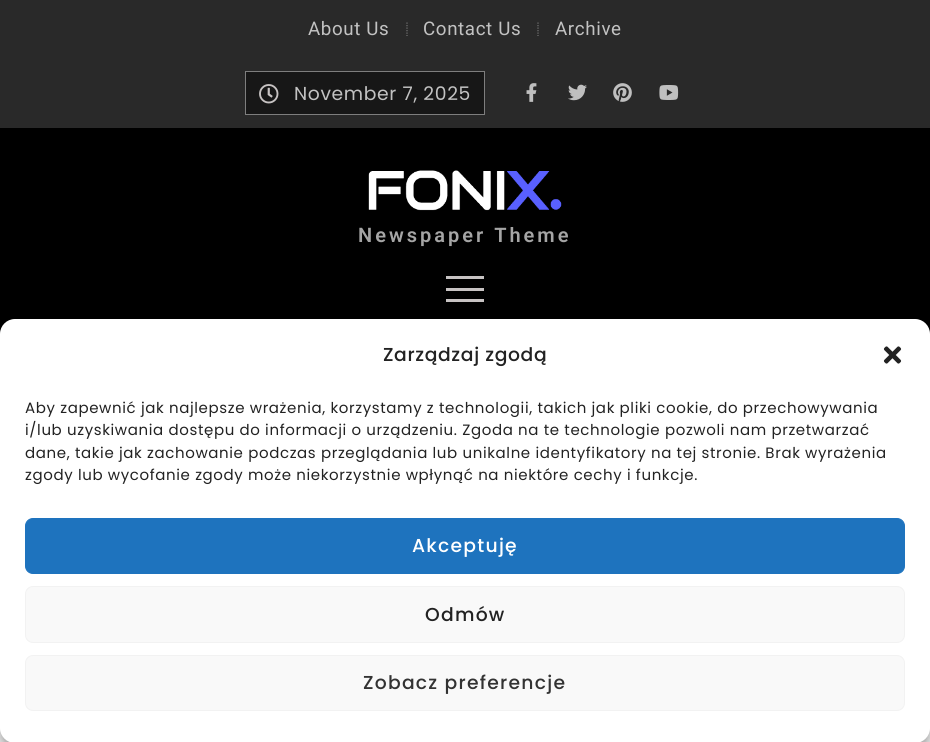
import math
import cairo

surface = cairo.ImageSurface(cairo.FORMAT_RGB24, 930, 742)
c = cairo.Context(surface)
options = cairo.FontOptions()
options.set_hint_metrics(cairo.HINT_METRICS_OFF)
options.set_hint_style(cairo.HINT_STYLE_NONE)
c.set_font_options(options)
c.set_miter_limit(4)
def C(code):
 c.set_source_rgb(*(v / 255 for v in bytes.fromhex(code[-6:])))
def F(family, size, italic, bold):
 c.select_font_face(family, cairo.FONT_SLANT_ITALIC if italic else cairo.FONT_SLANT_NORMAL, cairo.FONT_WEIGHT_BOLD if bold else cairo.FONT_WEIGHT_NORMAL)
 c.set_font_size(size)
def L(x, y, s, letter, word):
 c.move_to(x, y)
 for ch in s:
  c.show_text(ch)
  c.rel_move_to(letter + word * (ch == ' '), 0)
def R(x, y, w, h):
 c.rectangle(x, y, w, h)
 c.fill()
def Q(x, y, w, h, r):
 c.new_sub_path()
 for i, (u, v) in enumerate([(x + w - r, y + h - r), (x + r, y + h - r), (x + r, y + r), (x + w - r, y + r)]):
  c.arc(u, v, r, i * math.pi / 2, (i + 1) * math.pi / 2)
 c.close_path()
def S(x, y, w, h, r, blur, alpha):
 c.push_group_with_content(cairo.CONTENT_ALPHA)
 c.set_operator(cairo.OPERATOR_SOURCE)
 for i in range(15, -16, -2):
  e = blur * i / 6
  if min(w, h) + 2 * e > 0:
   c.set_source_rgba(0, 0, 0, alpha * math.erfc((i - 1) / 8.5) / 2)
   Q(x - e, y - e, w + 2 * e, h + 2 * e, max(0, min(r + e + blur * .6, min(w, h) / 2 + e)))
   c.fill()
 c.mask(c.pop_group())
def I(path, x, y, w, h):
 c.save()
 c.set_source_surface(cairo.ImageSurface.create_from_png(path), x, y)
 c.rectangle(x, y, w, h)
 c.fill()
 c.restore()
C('ffffff')
c.paint()
C('292929')
R(0,0,930,128)
F('Roboto',18.75,0,0)
C('c2c2c2')
L(308,35,'About Us',.62,0)
c.new_path()
c.move_to(407,22.5)
c.line_to(407,36)
C('727272')
c.set_line_width(1.2)
c.set_dash([1.25,1.25])
c.stroke()
C('c2c2c2')
L(423,35,'Contact Us',.62,0)
c.new_path()
c.move_to(538,22.5)
c.line_to(538,36)
C('727272')
c.stroke()
C('c2c2c2')
L(555,35,'Archive',.62,0)
C('171717')
c.rectangle(245.5,71.5,239,43)
c.fill_preserve()
C('7e7e7e')
c.set_line_width(1)
c.set_dash([])
c.stroke()
I('1.png',259,84,20,20)
F('Poppins',18.75,0,0)
C('c2c2c2')
L(294,100,'November 7, 2025',.62,0)
I('2.png',526,83,11,19)
I('3.png',568,84,19,17)
I('4.png',613,83,19,19)
I('5.png',659,85,20,15)
C('000000')
R(0,128,930,206)
I('6.png',368,170,194,41)
F('Roboto SemiBold',20,0,0)
C('a5a5a5')
L(358,242,'Newspaper Theme',3,0)
C('c7c3c3')
R(446,276,38,3)
R(446,288,38,3)
R(446,299,38,3)
C('000000')
S(0,326,930,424,15,4,.23)
S(0,331,930,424,15,12.5,.19)
C('ffffff')
Q(0,319,930,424,15)
c.fill()
F('Poppins Medium',18.75,0,0)
C('222222')
L(383,361,'Zarządzaj zgodą',.62,0)
I('7.png',883,346,19,18)
F('Poppins',15,0,0)
L(25,413,'Aby zapewnić jak najlepsze wrażenia, korzystamy z technologii, takich jak pliki cookie, do przechowywania',.62,0)
L(25,435,'i/lub uzyskiwania dostępu do informacji o urządzeniu. Zgoda na te technologie pozwoli nam przetwarzać',.62,0)
L(25,458,'dane, takie jak zachowanie podczas przeglądania lub unikalne identyfikatory na tej stronie. Brak wyrażenia',.62,0)
L(25,480,'zgody lub wycofanie zgody może niekorzystnie wpłynąć na niektóre cechy i funkcje.',.62,0)
C('1e73be')
Q(25.5,518.5,879,55,7.5)
c.fill_preserve()
c.stroke()
F('Poppins Medium',18.75,0,0)
C('ffffff')
L(412,552,'Akceptuję',1.25,0)
C('f9f9f9')
Q(25.5,586.5,879,56,7.5)
c.fill_preserve()
C('f2f2f2')
c.stroke()
C('222222')
L(425,621,'Odmów',1.25,0)
C('f9f9f9')
Q(25.5,655.5,879,55,7.5)
c.fill_preserve()
C('f2f2f2')
c.stroke()
C('333333')
L(363,689,'Zobacz preferencje',1.25,0)
surface.write_to_png('o.png')
